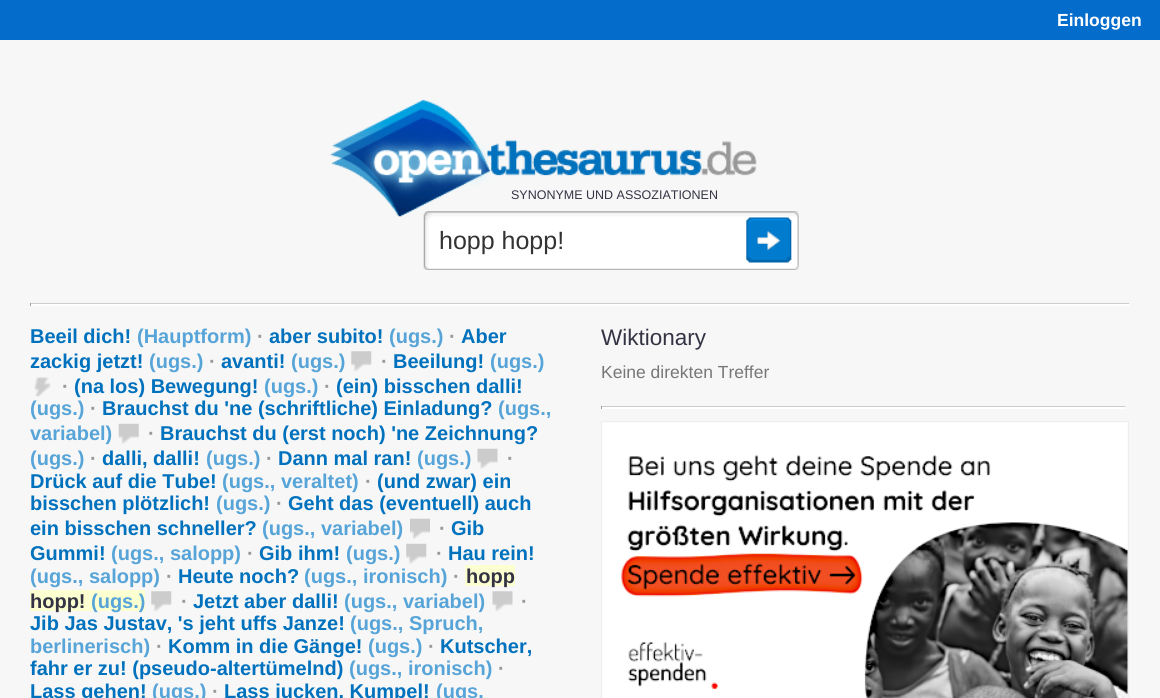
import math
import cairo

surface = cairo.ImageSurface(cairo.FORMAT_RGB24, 1160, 698)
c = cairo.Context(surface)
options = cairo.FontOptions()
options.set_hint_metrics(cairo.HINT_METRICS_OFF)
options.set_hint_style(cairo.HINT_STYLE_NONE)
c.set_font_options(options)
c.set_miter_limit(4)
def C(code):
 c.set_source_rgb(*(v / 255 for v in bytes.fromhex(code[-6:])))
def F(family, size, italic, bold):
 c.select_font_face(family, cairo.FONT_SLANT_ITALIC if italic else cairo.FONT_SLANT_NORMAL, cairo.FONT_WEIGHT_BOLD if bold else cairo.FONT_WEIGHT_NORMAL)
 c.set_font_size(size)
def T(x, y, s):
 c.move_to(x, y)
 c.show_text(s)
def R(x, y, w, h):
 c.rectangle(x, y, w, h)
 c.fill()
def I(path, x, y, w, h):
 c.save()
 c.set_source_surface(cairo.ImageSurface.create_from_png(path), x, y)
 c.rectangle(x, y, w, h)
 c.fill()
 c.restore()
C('f7f7f7')
c.paint()
C('046ccb')
R(0,0,1160,40)
F('Liberation Sans',17.5,0,1)
C('ffffff')
T(1057,26,'Einloggen')
I('1.png',330,100,427,117)
F('Liberation Sans',12.5,0,0)
C('333344')
T(511,199,'SYNONYME UND ASSOZIATIONEN')
I('2.png',423,211,376,59)
F('Liberation Sans',25,0,0)
C('333333')
T(439,249,'hopp hopp!')
I('3.png',746,217,46,46)
C('ffffff')
R(30,305,1100,1)
C('cccccc')
R(30,303,1100,1)
C('eeeeee')
R(1129,303,1,3)
C('ffffff')
R(30,304,1100,1)
C('9f9f9f')
R(30,303,1,3)
F('Liberation Sans',20,0,1)
C('0071bd')
T(30,343,'Beeil dich!')
C('57a4d8')
T(137,343,'(Hauptform)')
C('999999')
T(257,343,'·')
C('0071bd')
T(269,343,'aber subito!')
C('57a4d8')
T(389,343,'(ugs.)')
C('999999')
T(449,343,'·')
C('0071bd')
T(461,343,'Aber')
T(30,368,'zackig jetzt!')
C('57a4d8')
T(149,368,'(ugs.)')
C('999999')
T(209,368,'·')
C('0071bd')
T(221,368,'avanti!')
C('57a4d8')
T(291,368,'(ugs.)')
I('4.png',351,351,21,21)
C('999999')
T(381,368,'·')
C('0071bd')
T(393,368,'Beeilung!')
C('57a4d8')
T(490,368,'(ugs.)')
I('5.png',34,377,17,20)
C('999999')
T(62,393,'·')
C('0071bd')
T(74,393,'(na los) Bewegung!')
C('57a4d8')
T(264,393,'(ugs.)')
C('999999')
T(324,393,'·')
C('0071bd')
T(336,393,'(ein) bisschen dalli!')
C('57a4d8')
T(30,415,'(ugs.)')
C('999999')
T(90,415,'·')
C('0071bd')
T(102,415,'Brauchst du \'ne (schriftliche) Einladung?')
C('57a4d8')
T(498,415,'(ugs.,')
T(30,440,'variabel)')
I('6.png',118,423,21,21)
C('999999')
T(148,440,'·')
C('0071bd')
T(160,440,'Brauchst du (erst noch) \'ne Zeichnung?')
C('57a4d8')
T(30,465,'(ugs.)')
C('999999')
T(90,465,'·')
C('0071bd')
T(102,465,'dalli, dalli!')
C('57a4d8')
T(206,465,'(ugs.)')
C('999999')
T(266,465,'·')
C('0071bd')
T(278,465,'Dann mal ran!')
C('57a4d8')
T(417,465,'(ugs.)')
I('7.png',477,448,21,21)
C('999999')
T(507,465,'·')
C('0071bd')
T(30,488,'Drück auf die Tube!')
C('57a4d8')
T(222,488,'(ugs., veraltet)')
C('999999')
T(365,488,'·')
C('0071bd')
T(377,488,'(und zwar) ein')
T(30,510,'bisschen plötzlich!')
C('57a4d8')
T(216,510,'(ugs.)')
C('999999')
T(276,510,'·')
C('0071bd')
T(288,510,'Geht das (eventuell) auch')
T(30,535,'ein bisschen schneller?')
C('57a4d8')
T(262,535,'(ugs., variabel)')
I('8.png',410,518,20,21)
C('999999')
T(439,535,'·')
C('0071bd')
T(451,535,'Gib')
T(30,560,'Gummi!')
C('57a4d8')
T(111,560,'(ugs., salopp)')
C('999999')
T(247,560,'·')
C('0071bd')
T(259,560,'Gib ihm!')
C('57a4d8')
T(346,560,'(ugs.)')
I('9.png',406,543,21,21)
C('999999')
T(436,560,'·')
C('0071bd')
T(448,560,'Hau rein!')
C('57a4d8')
T(30,583,'(ugs., salopp)')
C('999999')
T(166,583,'·')
C('0071bd')
T(178,583,'Heute noch?')
C('57a4d8')
T(304,583,'(ugs., ironisch)')
C('999999')
T(453,583,'·')
C('fcffd0')
R(465,565,50,21)
C('333344')
T(466,583,'hopp')
C('fcffd0')
R(30,590,115,21)
C('333344')
T(30,608,'hopp!')
C('57a4d8')
T(91,608,'(ugs.)')
I('4.png',151,591,21,21)
C('999999')
T(181,608,'·')
C('0071bd')
T(193,608,'Jetzt aber dalli!')
C('57a4d8')
T(344,608,'(ugs., variabel)')
I('10.png',492,591,21,21)
C('999999')
T(521,608,'·')
C('0071bd')
T(30,630,'Jib Jas Justav, \'s jeht uffs Janze!')
C('57a4d8')
T(350,630,'(ugs., Spruch,')
T(30,653,'berlinerisch)')
C('999999')
T(156,653,'·')
C('0071bd')
T(168,653,'Komm in die Gänge!')
C('57a4d8')
T(368,653,'(ugs.)')
C('999999')
T(428,653,'·')
C('0071bd')
T(440,653,'Kutscher,')
T(30,675,'fahr er zu! (pseudo-altertümelnd)')
C('57a4d8')
T(349,675,'(ugs., ironisch)')
C('999999')
T(498,675,'·')
C('0071bd')
T(30,698,'Lass gehen!')
C('57a4d8')
T(152,698,'(ugs.)')
C('999999')
T(212,698,'·')
C('0071bd')
T(224,698,'Lass jucken, Kumpel!')
C('57a4d8')
T(436,698,'(ugs.')
F('Liberation Sans',22.5,0,0)
C('333344')
T(601,345,'Wiktionary')
F('Liberation Sans',17.5,0,0)
C('777777')
T(601,378,'Keine direkten Treffer')
C('ffffff')
R(601,407,525,1)
C('cccccc')
R(601,406,525,1)
C('eeeeee')
R(1125,406,1,3)
C('ffffff')
R(601,408,525,1)
C('9f9f9f')
R(601,406,1,3)
c.rectangle(601.5,421.5,527,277)
C('eeeeee')
c.set_line_width(1)
c.stroke()
I('11.png',602,422,526,276)
surface.write_to_png('o.png')
